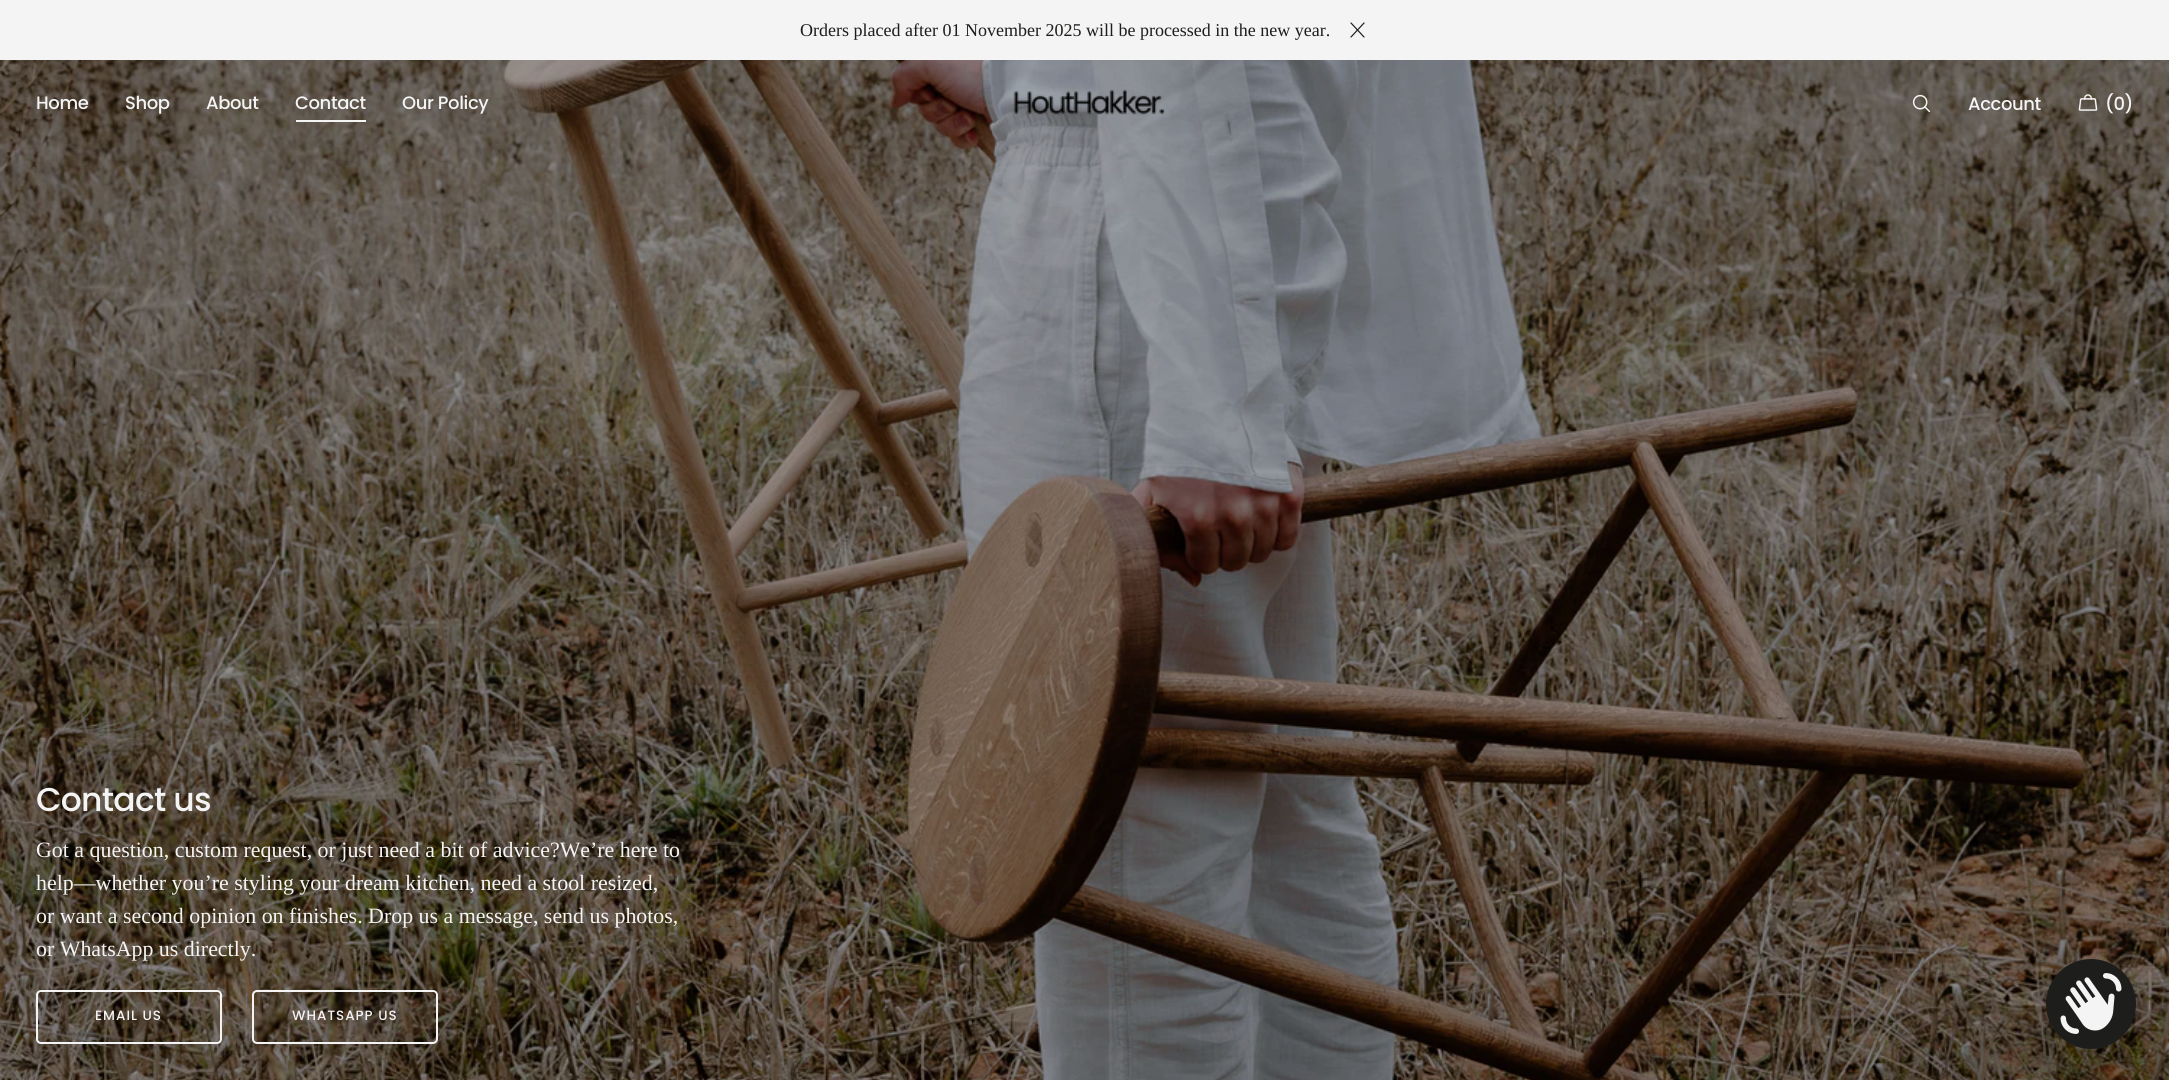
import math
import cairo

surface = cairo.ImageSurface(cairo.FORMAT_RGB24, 2169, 1080)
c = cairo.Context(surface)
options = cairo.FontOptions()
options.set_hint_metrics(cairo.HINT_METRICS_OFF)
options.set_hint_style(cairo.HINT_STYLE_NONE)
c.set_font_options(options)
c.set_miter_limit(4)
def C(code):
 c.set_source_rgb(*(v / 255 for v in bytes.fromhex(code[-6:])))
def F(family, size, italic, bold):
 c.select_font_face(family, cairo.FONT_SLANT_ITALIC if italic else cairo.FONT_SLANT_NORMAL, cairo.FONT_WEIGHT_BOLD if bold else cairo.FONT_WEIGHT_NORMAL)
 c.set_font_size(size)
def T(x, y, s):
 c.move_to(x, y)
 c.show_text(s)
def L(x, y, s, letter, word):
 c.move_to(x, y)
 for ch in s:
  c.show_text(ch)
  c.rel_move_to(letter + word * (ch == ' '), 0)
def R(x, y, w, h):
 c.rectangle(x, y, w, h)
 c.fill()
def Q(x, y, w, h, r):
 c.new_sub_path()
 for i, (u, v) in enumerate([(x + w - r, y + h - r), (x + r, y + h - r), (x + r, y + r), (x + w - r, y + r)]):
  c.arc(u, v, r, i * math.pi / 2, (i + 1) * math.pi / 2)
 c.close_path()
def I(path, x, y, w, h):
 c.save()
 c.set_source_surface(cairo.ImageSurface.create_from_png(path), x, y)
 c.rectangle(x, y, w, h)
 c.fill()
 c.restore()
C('f4f4f4')
c.paint()
F('Liberation Serif',18,0,0)
C('1d1d1b')
T(800,36,'Orders placed after 01 November 2025 will be processed in the new year.')
c.new_path()
c.move_to(1364,23)
c.line_to(1351,37)
c.move_to(1364,37)
c.line_to(1351,23)
c.set_line_width(1.2)
c.set_line_cap(cairo.LINE_CAP_ROUND)
c.set_line_join(cairo.LINE_JOIN_ROUND)
c.stroke()
I('4.png',0,60,2169,1020)
F('Poppins Medium',18,0,0)
C('f4f4f4')
L(36,109,'Home',-.4,0)
L(125,109,'Shop',-.4,0)
L(206,109,'About',-.4,0)
L(295,109,'Contact',-.4,0)
R(296,120,70,2)
L(402,109,'Our Policy',-.4,0)
I('1.png',1013,89,152,26)
I('2.png',1912,94,19,19)
L(1968,110,'Account',-.4,0)
I('3.png',2078,94,20,17)
L(2105,110,'(0)',-.4,0)
F('Poppins Medium',33,0,0)
L(36,811,'Contact us',-.75,0)
F('Liberation Serif',21.9,0,0)
T(36,857,'Got a question, custom request, or just need a bit of advice?We’re here to')
T(36,890,'help—whether you’re styling your dream kitchen, need a stool resized,')
T(36,923,'or want a second opinion on finishes. Drop us a message, send us photos,')
T(36,956,'or WhatsApp us directly.')
Q(37,991,184,52,4)
c.set_line_width(2)
c.set_line_cap(cairo.LINE_CAP_BUTT)
c.set_line_join(cairo.LINE_JOIN_MITER)
c.stroke()
F('Poppins Medium',13.5,0,0)
L(95,1020,'EMAIL US',1,0)
Q(253,991,184,52,4)
c.stroke()
L(292,1020,'WHATSAPP US',1,0)
C('1d1d1b')
c.new_path()
c.arc(2091,1004,45,0,2 * math.pi)
c.fill()
I('5.png',2060,973,62,61)
surface.write_to_png('o.png')
